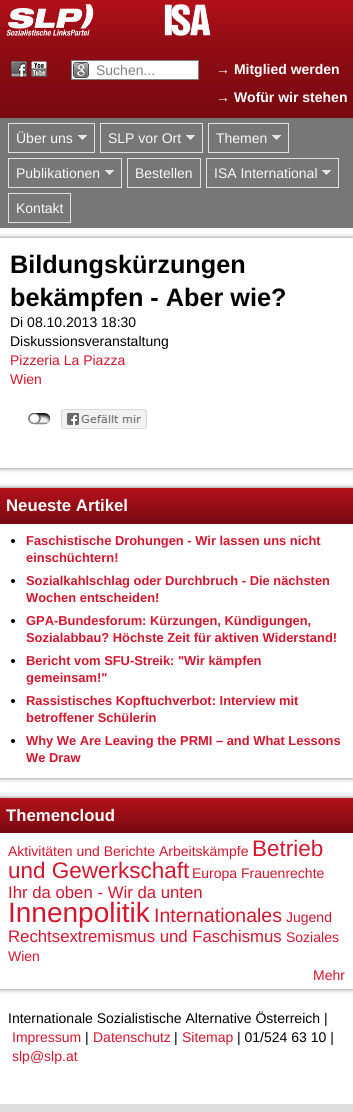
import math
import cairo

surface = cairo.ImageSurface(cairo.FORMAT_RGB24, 353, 1112)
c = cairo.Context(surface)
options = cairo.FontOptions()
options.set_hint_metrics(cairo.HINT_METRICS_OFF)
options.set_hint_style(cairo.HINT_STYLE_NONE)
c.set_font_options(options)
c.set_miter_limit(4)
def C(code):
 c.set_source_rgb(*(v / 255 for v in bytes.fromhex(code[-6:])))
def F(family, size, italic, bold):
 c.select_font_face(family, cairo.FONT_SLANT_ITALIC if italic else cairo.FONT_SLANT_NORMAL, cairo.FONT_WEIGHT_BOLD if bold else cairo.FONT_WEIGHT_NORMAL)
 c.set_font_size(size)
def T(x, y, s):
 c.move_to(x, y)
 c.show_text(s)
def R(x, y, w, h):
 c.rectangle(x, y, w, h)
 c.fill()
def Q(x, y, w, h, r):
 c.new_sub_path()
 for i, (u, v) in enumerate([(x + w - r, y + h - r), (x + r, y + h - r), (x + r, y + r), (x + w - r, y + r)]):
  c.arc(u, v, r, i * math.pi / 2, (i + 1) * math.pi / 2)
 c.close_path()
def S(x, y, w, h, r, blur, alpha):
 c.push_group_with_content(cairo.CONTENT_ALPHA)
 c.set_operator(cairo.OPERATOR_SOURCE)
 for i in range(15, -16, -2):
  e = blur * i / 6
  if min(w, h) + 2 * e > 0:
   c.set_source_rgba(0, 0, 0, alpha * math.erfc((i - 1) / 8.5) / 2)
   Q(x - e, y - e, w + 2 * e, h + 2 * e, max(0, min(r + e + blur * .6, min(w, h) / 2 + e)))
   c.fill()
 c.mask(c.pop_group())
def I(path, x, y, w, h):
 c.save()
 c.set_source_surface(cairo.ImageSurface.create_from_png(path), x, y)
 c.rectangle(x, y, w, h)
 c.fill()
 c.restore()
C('dedede')
c.paint()
C('ffffff')
R(0,228,353,876)
I('1.png',0,0,353,49)
gradient = cairo.LinearGradient(177,49,177,118)
gradient.add_color_stop_rgba(0,0.561,0.047,0.078,1)
gradient.add_color_stop_rgba(1,0.471,0.035,0.063,1)
c.set_source(gradient)
R(0,49,353,69)
I('2.png',11,61,16,16)
I('3.png',31,61,16,16)
C('ffffff')
R(72,61,126,18)
I('4.png',73,62,16,16)
c.rectangle(71.5,60.5,127,19)
C('808080')
c.set_line_width(1)
c.stroke()
F('Liberation Sans',14,0,0)
T(96,75,'Suchen...')
F('Liberation Sans',14,0,1)
C('ffffff')
T(216,74,'→ Mitglied werden')
T(216,102,'→ Wofür wir stehen')
C('777777')
R(0,118,353,110)
c.rectangle(8.5,123.5,86,29)
C('e1e1e1')
c.stroke()
F('Liberation Sans',14,0,0)
C('f8f8f8')
T(16,143,'Über uns')
I('5.png',78,135,9,5)
c.rectangle(100.5,123.5,102,29)
C('e1e1e1')
c.stroke()
C('f8f8f8')
T(108,143,'SLP vor Ort')
I('5.png',186,135,9,5)
c.rectangle(208.5,123.5,80,29)
C('e1e1e1')
c.stroke()
C('f8f8f8')
T(216,143,'Themen')
I('5.png',272,135,9,5)
c.rectangle(8.5,158.5,113,29)
C('e1e1e1')
c.stroke()
C('f8f8f8')
T(16,178,'Publikationen')
I('5.png',105,170,9,5)
c.rectangle(127.5,158.5,73,29)
C('e1e1e1')
c.stroke()
C('f8f8f8')
T(135,178,'Bestellen')
c.rectangle(206.5,158.5,132,29)
C('e1e1e1')
c.stroke()
C('f8f8f8')
T(214,178,'ISA International')
I('5.png',322,170,9,5)
c.rectangle(8.5,193.5,62,29)
C('e1e1e1')
c.stroke()
C('f8f8f8')
T(16,213,'Kontakt')
c.save()
c.set_fill_rule(cairo.FILL_RULE_EVEN_ODD)
c.new_path()
c.move_to(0,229)
c.line_to(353,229)
c.line_to(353,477)
c.line_to(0,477)
c.close_path()
c.move_to(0,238)
c.line_to(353,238)
c.line_to(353,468)
c.line_to(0,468)
c.close_path()
c.clip()
C('777777')
S(0,238,353,230,0,2.5,1)
c.restore()
F('Liberation Sans',25.25,0,1)
C('000000')
T(10,273,'Bildungskürzungen')
T(10,306,'bekämpfen - Aber wie?')
F('Liberation Sans',14,0,0)
T(10,327,'Di 08.10.2013 18:30')
T(10,346,'Diskussionsveranstaltung')
C('d7162e')
T(10,365,'Pizzeria La Piazza')
T(10,384,'Wien')
I('6.png',28,413,23,12)
I('7.png',61,409,86,20)
c.save()
c.set_fill_rule(cairo.FILL_RULE_EVEN_ODD)
c.new_path()
c.move_to(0,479)
c.line_to(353,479)
c.line_to(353,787)
c.line_to(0,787)
c.close_path()
c.move_to(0,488)
c.line_to(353,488)
c.line_to(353,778)
c.line_to(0,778)
c.close_path()
c.clip()
C('777777')
S(0,488,353,290,0,2.5,1)
c.restore()
gradient = cairo.LinearGradient(177,488,177,524)
gradient.add_color_stop_rgba(0,0.71,0.067,0.102,1)
gradient.add_color_stop_rgba(1,0.471,0.035,0.063,1)
c.set_source(gradient)
R(0,488,353,36)
F('Liberation Sans',16.75,0,1)
C('ffffff')
T(6,511,'Neueste Artikel')
C('000000')
c.new_path()
c.arc(13,541,2,0,2 * math.pi)
c.fill()
F('Liberation Sans',12.9,0,1)
C('d7162e')
T(26,545,'Faschistische Drohungen - Wir lassen uns nicht')
T(26,562,'einschüchtern!')
C('000000')
c.new_path()
c.arc(13,581,2,0,2 * math.pi)
c.fill()
C('d7162e')
T(26,585,'Sozialkahlschlag oder Durchbruch - Die nächsten')
T(26,602,'Wochen entscheiden!')
C('000000')
c.new_path()
c.arc(13,621,2,0,2 * math.pi)
c.fill()
C('d7162e')
T(26,625,'GPA-Bundesforum: Kürzungen, Kündigungen,')
T(26,642,'Sozialabbau? Höchste Zeit für aktiven Widerstand!')
C('000000')
c.new_path()
c.arc(13,661,2,0,2 * math.pi)
c.fill()
C('d7162e')
T(26,665,'Bericht vom SFU-Streik: "Wir kämpfen')
T(26,682,'gemeinsam!"')
C('000000')
c.new_path()
c.arc(13,701,2,0,2 * math.pi)
c.fill()
C('d7162e')
T(26,705,'Rassistisches Kopftuchverbot: Interview mit')
T(26,722,'betroffener Schülerin')
C('000000')
c.new_path()
c.arc(13,741,2,0,2 * math.pi)
c.fill()
C('d7162e')
T(26,745,'Why We Are Leaving the PRMI – and What Lessons')
T(26,762,'We Draw')
c.save()
c.set_fill_rule(cairo.FILL_RULE_EVEN_ODD)
c.new_path()
c.move_to(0,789)
c.line_to(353,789)
c.line_to(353,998)
c.line_to(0,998)
c.close_path()
c.move_to(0,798)
c.line_to(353,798)
c.line_to(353,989)
c.line_to(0,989)
c.close_path()
c.clip()
C('777777')
S(0,798,353,191,0,2.5,1)
c.restore()
gradient = cairo.LinearGradient(177,798,177,833)
gradient.add_color_stop_rgba(0,0.71,0.067,0.102,1)
gradient.add_color_stop_rgba(1,0.471,0.035,0.063,1)
c.set_source(gradient)
R(0,798,353,35)
F('Liberation Sans',16.75,0,1)
C('ffffff')
T(6,821,'Themencloud')
F('Liberation Sans',14,0,0)
C('d7162e')
T(8,856,'Aktivitäten und Berichte Arbeitskämpfe')
F('Liberation Sans',22.5,0,0)
T(252,856,'Betrieb')
T(8,878,'und Gewerkschaft')
F('Liberation Sans',14,0,0)
T(192,878,'Europa Frauenrechte')
F('Liberation Sans',16.75,0,0)
T(8,898,'Ihr da oben - Wir da unten')
F('Liberation Sans',28,0,0)
T(8,922,'Innenpolitik')
F('Liberation Sans',19.5,0,0)
T(154,922,'Internationales')
F('Liberation Sans',14,0,0)
T(286,922,'Jugend')
F('Liberation Sans',16.75,0,0)
T(8,942,'Rechtsextremismus und Faschismus')
F('Liberation Sans',14,0,0)
T(286,942,'Soziales')
T(8,961,'Wien')
T(313,980,'Mehr')
C('000000')
T(8,1023,'Internationale Sozialistische Alternative Österreich |')
C('d7162e')
T(12,1042,'Impressum')
C('000000')
T(85,1042,'|')
C('d7162e')
T(93,1042,'Datenschutz')
C('000000')
T(174,1042,'|')
C('d7162e')
T(182,1042,'Sitemap')
C('000000')
T(237,1042,'| 01/524 63 10 |')
C('d7162e')
T(12,1061,'slp@slp.at')
surface.write_to_png('o.png')
